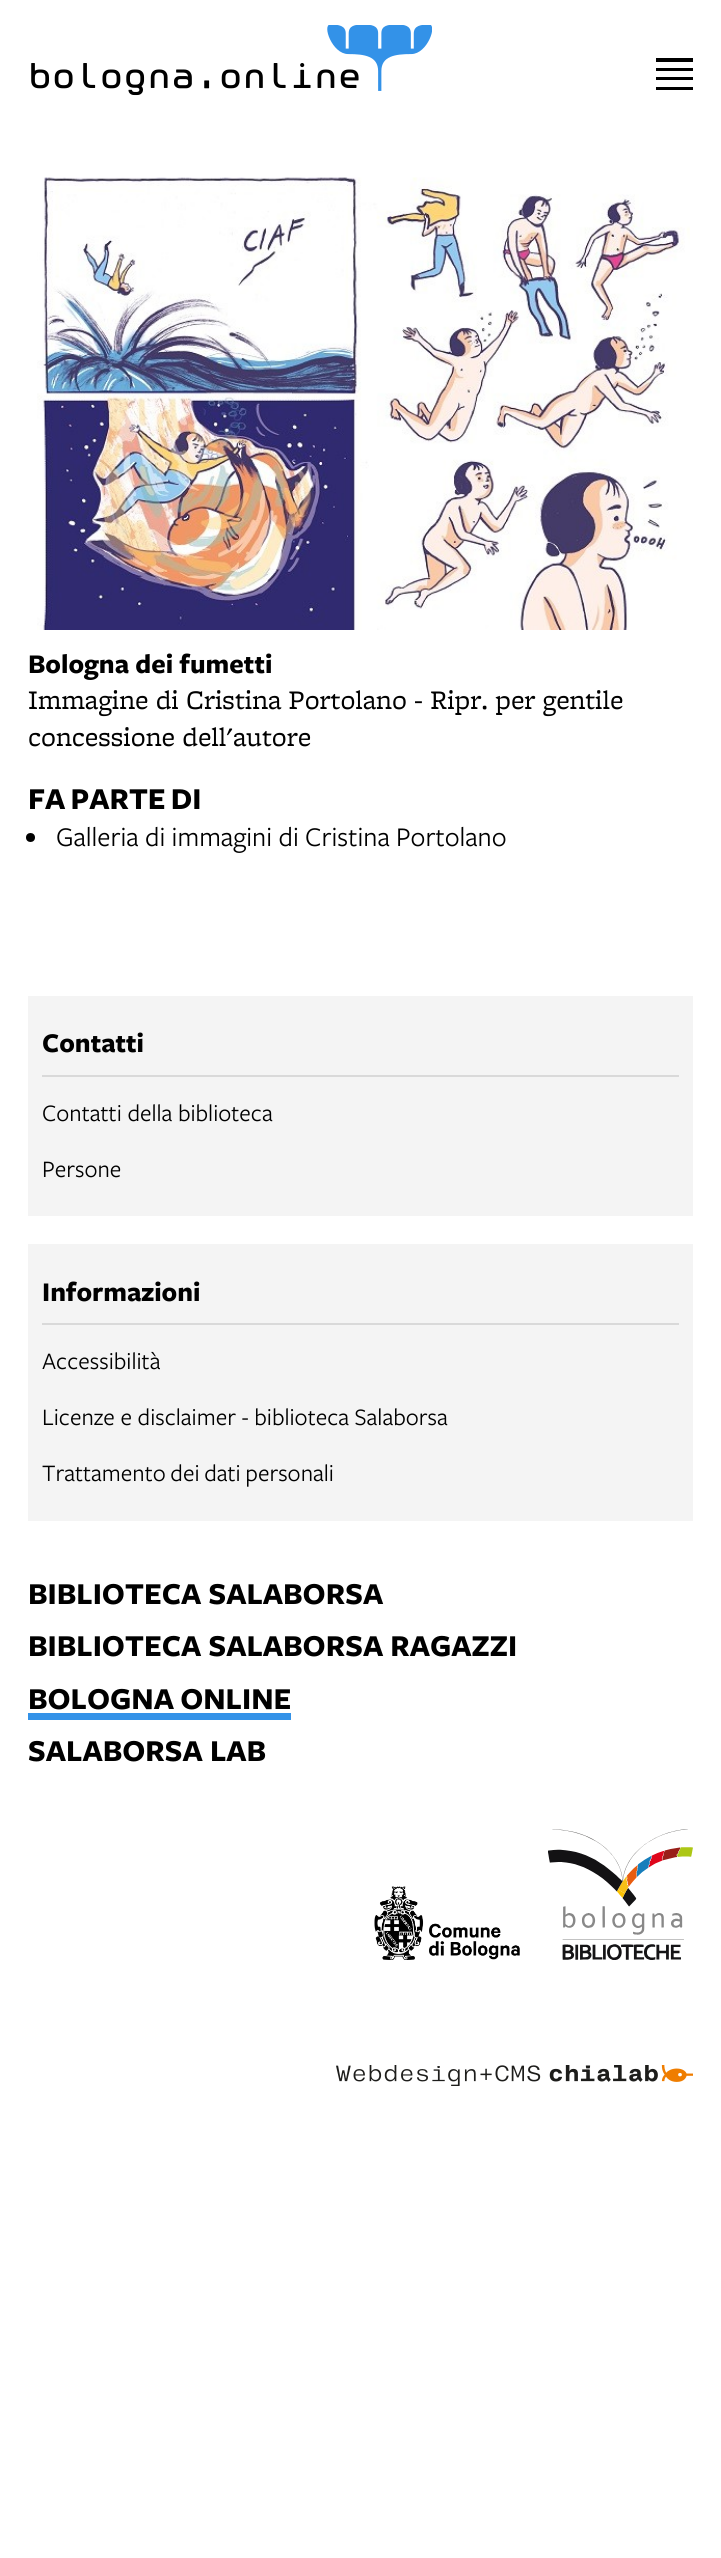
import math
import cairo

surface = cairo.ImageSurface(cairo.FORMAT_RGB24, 721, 2558)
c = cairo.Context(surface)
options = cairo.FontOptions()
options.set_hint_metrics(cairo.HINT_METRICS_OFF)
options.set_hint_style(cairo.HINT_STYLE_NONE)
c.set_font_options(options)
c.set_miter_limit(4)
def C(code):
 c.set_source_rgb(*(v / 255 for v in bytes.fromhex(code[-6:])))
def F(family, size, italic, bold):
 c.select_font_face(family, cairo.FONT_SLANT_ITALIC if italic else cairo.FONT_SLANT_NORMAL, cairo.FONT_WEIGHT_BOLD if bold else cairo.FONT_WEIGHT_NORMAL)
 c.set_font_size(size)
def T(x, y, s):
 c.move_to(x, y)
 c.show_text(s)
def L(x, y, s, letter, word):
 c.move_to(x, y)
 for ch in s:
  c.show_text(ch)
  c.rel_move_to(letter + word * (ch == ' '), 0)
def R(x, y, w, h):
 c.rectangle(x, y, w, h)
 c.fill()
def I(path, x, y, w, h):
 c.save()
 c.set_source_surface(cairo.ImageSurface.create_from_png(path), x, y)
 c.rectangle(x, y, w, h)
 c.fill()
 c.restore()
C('ffffff')
c.paint()
F('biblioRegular',35,0,0)
C('000000')
T(28,88,'bologna.online')
I('1.png',327,25,105,66)
R(656,58,37,4)
R(656,87,37,3)
R(656,68,37,3)
R(656,77,37,3)
I('2.png',37,177,653,453)
F('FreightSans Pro',28,0,1)
T(28,673,'Bologna dei fumetti')
F('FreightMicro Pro',28,0,0)
L(28,709,'Immagine di Cristina Portolano - Ripr. per gentile',0,-.25)
T(28,746,'concessione dell\'autore')
F('FreightSans Pro',31.5,0,1)
L(28,809,'FA PARTE DI',0,-2)
c.new_path()
c.arc(30.5,837.5,4.5,0,2 * math.pi)
c.fill()
F('FreightSans Pro',28,0,0)
T(56,846,'Galleria di immagini di Cristina Portolano')
C('f4f4f4')
R(28,996,665,220)
C('d9d9d9')
R(42,1075,637,2)
F('FreightSans Pro',28,0,1)
C('000000')
T(42,1052,'Contatti')
F('FreightSans Pro',24.5,0,0)
T(42,1121,'Contatti della biblioteca')
T(42,1177,'Persone')
C('f4f4f4')
R(28,1244,665,277)
C('d9d9d9')
R(42,1323,637,2)
F('FreightSans Pro',28,0,1)
C('000000')
T(42,1301,'Informazioni')
F('FreightSans Pro',24.5,0,0)
T(42,1369,'Accessibilità')
T(42,1425,'Licenze e disclaimer - biblioteca Salaborsa')
L(42,1481,'Trattamento dei dati personali',0,-1)
F('FreightSans Pro',31.5,0,1)
T(28,1604,'BIBLIOTECA SALABORSA')
T(28,1656,'BIBLIOTECA SALABORSA RAGAZZI')
C('3392e8')
R(28,1713,263,7)
C('000000')
L(28,1709,'BOLOGNA ONLINE',0,-1)
T(28,1761,'SALABORSA LAB')
I('3.png',374,1886,146,74)
I('4.png',548,1829,145,131)
I('5.png',336,2065,357,21)
surface.write_to_png('o.png')
